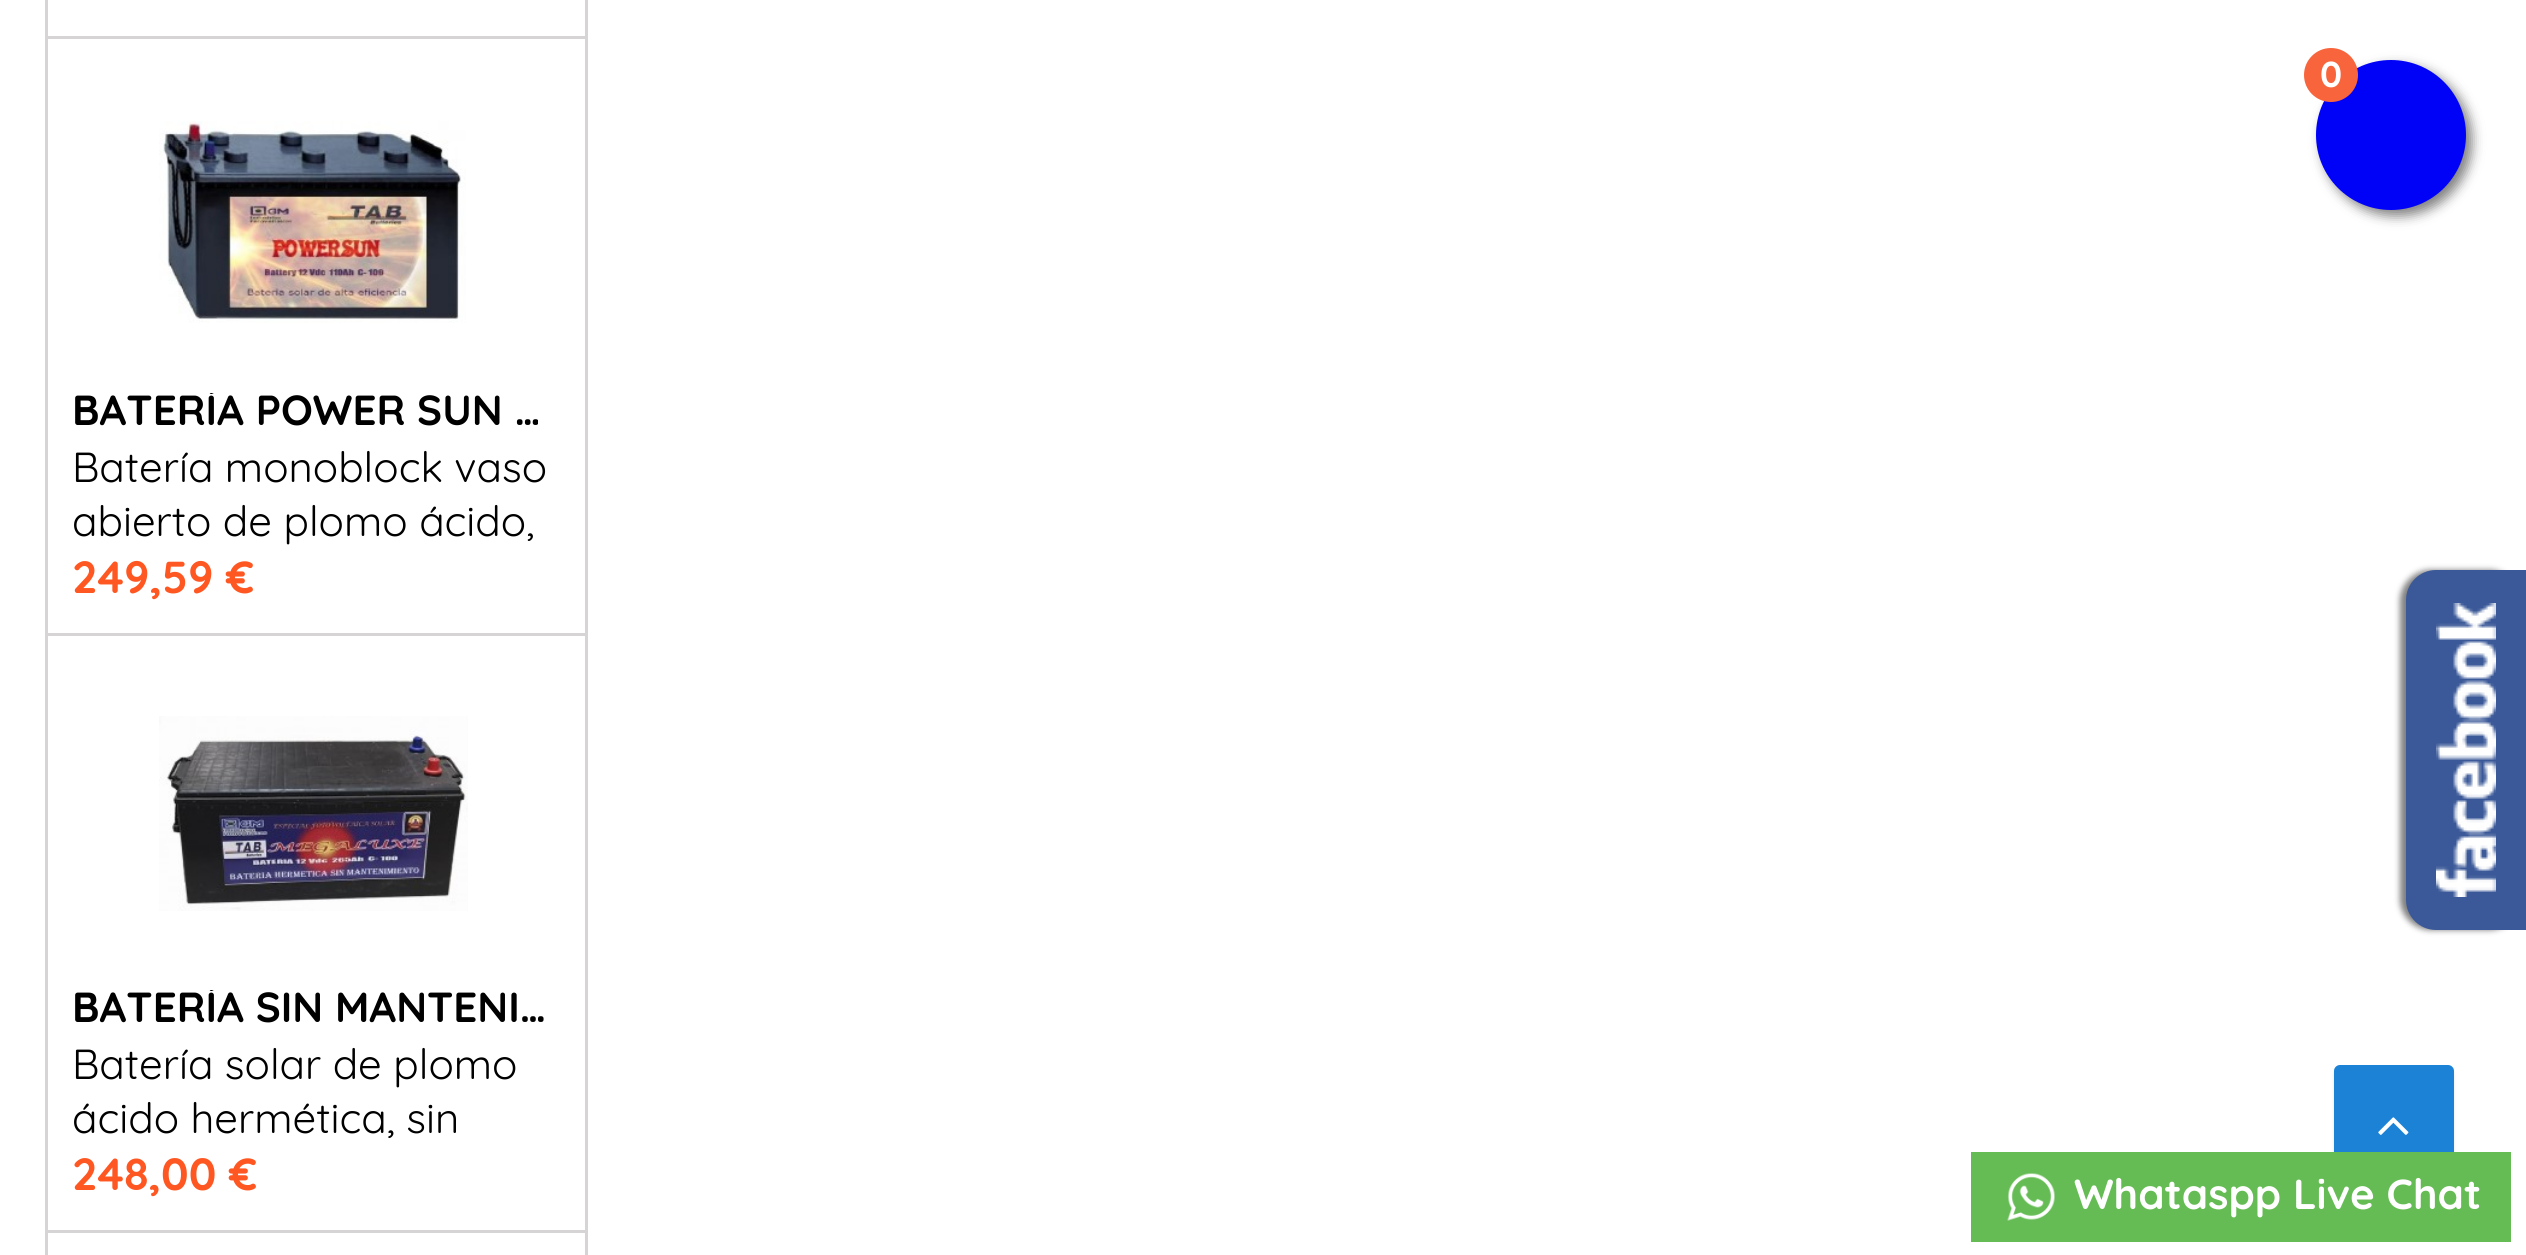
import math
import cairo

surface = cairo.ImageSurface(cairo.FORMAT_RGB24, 2526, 1255)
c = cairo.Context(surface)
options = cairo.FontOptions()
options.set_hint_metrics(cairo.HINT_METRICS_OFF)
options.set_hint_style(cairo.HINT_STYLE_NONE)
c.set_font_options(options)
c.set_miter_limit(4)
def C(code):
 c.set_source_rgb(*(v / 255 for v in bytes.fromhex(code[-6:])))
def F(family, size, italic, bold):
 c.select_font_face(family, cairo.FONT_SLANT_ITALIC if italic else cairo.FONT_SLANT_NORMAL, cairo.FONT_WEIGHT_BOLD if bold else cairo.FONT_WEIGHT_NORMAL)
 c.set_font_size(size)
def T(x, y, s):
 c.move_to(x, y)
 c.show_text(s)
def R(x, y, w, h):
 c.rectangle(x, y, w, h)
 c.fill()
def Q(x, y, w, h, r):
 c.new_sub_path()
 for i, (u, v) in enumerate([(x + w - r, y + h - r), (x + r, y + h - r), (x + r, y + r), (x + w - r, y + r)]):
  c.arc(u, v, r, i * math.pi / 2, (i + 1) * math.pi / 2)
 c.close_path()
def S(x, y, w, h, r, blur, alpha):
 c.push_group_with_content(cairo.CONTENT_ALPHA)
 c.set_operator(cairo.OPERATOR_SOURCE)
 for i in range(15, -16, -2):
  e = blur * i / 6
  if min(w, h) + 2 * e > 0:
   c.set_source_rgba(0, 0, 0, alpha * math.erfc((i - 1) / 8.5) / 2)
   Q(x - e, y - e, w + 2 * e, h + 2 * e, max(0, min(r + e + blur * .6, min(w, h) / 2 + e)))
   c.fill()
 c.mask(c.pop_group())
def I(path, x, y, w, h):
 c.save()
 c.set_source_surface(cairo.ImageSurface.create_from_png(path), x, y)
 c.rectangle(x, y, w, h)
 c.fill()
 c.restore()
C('ffffff')
c.paint()
C('000000')
S(2322,66,150,150,75,6,.5)
C('0002f7')
c.arc(2391,135,75,0,2 * math.pi)
c.fill()
C('f8653d')
c.arc(2331,75,27,0,2 * math.pi)
c.fill()
F('Quicksand',36,0,1)
C('ffffff')
T(2320,87,'0')
C('d6d4d4')
R(585,0,3,1255)
R(45,36,543,3)
R(45,0,3,39)
R(45,633,543,3)
R(45,39,3,597)
I('1.png',159,121,307,202)
c.save()
c.rectangle(72,393,489,36)
c.clip()
F('Quicksand',42,0,1)
C('000000')
T(72,425,'BATERÍA POWER SUN …')
c.restore()
F('Quicksand',42,0,0)
C('000000')
T(72,482,'Batería monoblock vaso')
T(72,536,'abierto de plomo ácido,')
F('Quicksand',45,0,1)
C('ff5722')
T(72,593,'249,59 €')
C('d6d4d4')
R(45,1230,543,3)
R(45,636,3,619)
I('2.png',159,716,309,195)
c.save()
c.rectangle(72,990,489,36)
c.clip()
F('Quicksand',42,0,1)
C('000000')
T(72,1022,'BATERÍA SIN MANTENI…')
c.restore()
F('Quicksand',42,0,0)
C('000000')
T(72,1079,'Batería solar de plomo')
T(72,1133,'ácido hermética, sin')
F('Quicksand',45,0,1)
C('ff5722')
T(72,1190,'248,00 €')
C('000000')
S(2400,570,120,360,30,3,.5)
C('3b5998')
c.new_path()
c.move_to(2436,570)
c.line_to(2526,570)
c.line_to(2526,930)
c.line_to(2436,930)
c.curve_to(2419.5,930,2406,916.5,2406,900)
c.line_to(2406,600)
c.curve_to(2406,583.5,2419.5,570,2436,570)
c.close_path()
c.fill()
I('3.png',2436,603,60,294)
C('000000')
S(2334,1068,120,120,6,1.5,.1)
C('1b82d6')
Q(2334,1065,120,120,6)
c.fill()
I('4.png',2378,1117,31,18)
C('65bc54')
R(1971,1152,540,90)
I('5.png',2007,1173,48,48)
F('Quicksand',42,0,1)
C('ffffff')
T(2074,1209,'Whataspp Live Chat')
surface.write_to_png('o.png')
